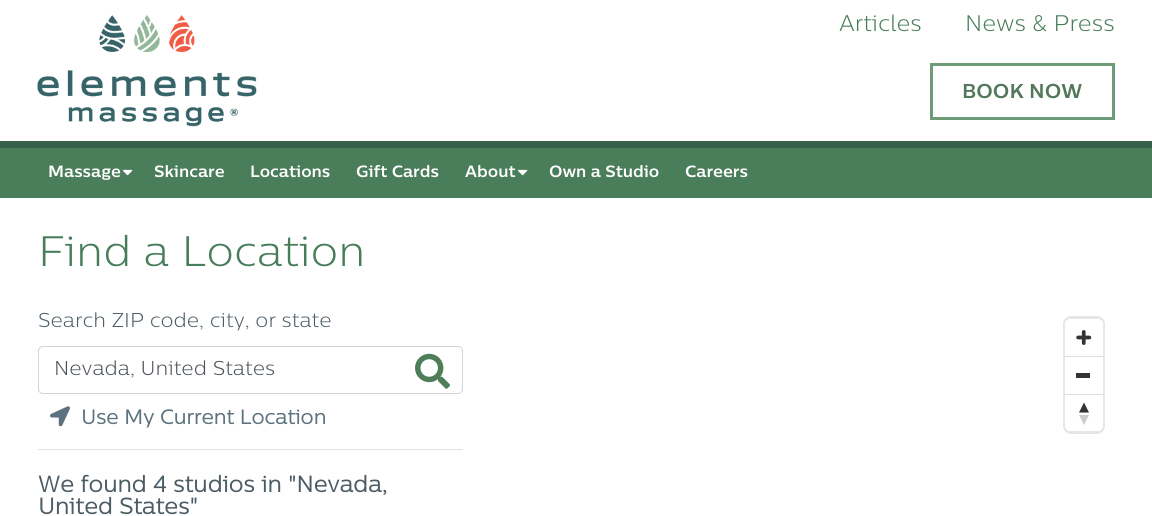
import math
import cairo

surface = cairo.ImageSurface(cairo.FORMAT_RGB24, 1152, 516)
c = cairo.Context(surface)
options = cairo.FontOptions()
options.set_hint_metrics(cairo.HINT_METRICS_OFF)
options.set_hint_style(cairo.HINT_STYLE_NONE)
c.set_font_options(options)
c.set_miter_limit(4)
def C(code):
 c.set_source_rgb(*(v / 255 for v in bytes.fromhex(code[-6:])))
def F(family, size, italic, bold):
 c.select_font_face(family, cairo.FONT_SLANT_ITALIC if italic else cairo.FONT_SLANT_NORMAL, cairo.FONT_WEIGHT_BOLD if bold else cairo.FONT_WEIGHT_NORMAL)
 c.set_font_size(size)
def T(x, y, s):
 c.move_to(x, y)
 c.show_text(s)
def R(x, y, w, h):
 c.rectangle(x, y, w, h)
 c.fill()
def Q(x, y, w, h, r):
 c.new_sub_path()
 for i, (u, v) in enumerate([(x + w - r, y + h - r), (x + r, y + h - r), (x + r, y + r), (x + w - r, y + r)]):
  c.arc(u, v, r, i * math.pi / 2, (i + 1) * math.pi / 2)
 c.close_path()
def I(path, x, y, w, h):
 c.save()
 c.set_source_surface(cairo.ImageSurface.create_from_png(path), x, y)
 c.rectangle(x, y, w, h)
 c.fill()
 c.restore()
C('ffffff')
c.paint()
I('1.png',37,15,220,112)
F('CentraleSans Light',22.5,0,0)
C('477d5a')
T(839,31,'Articles')
T(965,31,'News & Press')
c.rectangle(931.5,64.5,182,54)
C('6e9c78')
c.set_line_width(3)
c.stroke()
F('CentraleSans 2',20,0,1)
C('52795a')
T(962,98,'BOOK NOW')
C('4a7d5a')
R(0,148,1152,50)
C('38614d')
R(0,141,1152,7)
F('CentraleSans 2',16.25,0,1)
C('ffffff')
T(48,177,'Massage')
I('2.png',122,169,11,7)
T(154,177,'Skincare')
T(250,177,'Locations')
T(356,177,'Gift Cards')
T(465,177,'About')
I('2.png',517,169,11,7)
T(549,177,'Own a Studio')
T(685,177,'Careers')
F('CentraleSans Light',42.5,0,0)
C('477d5a')
T(38,266,'Find a Location')
F('CentraleSans Light',20,0,0)
C('4c5c65')
T(38,327,'Search ZIP code, city, or state')
Q(38.5,346.5,424,47,4.5)
C('ced4da')
c.set_line_width(1)
c.stroke()
C('495057')
T(54,375,'Nevada, United States')
I('3.png',415,353,35,36)
I('4.png',50,406,20,21)
F('CentraleSans',20,0,1)
C('5c727e')
T(81,424,'Use My Current Location')
C('e2e2e2')
R(38,449,425,1)
F('CentraleSans',22.5,0,1)
C('4c5c65')
T(38,492,'We found 4 studios in "Nevada,')
T(38,514,'United States"')
Q(1064.5,317.5,39,115,6.5)
C('e6e6e6')
c.set_line_width(3)
c.stroke()
C('ffffff')
Q(1065,319,38,112,5)
c.fill()
I('5.png',1076,330,16,15)
C('333333')
R(1076,373,14,5)
C('dddddd')
R(1065,356,38,1)
R(1065,394,38,1)
C('333333')
c.new_path()
c.move_to(1079,412.5)
c.line_to(1084,402.5)
c.line_to(1089,412.5)
c.close_path()
c.fill()
C('cccccc')
c.new_path()
c.move_to(1079,415)
c.line_to(1084,425)
c.line_to(1089,415)
c.close_path()
c.fill()
surface.write_to_png('o.png')
